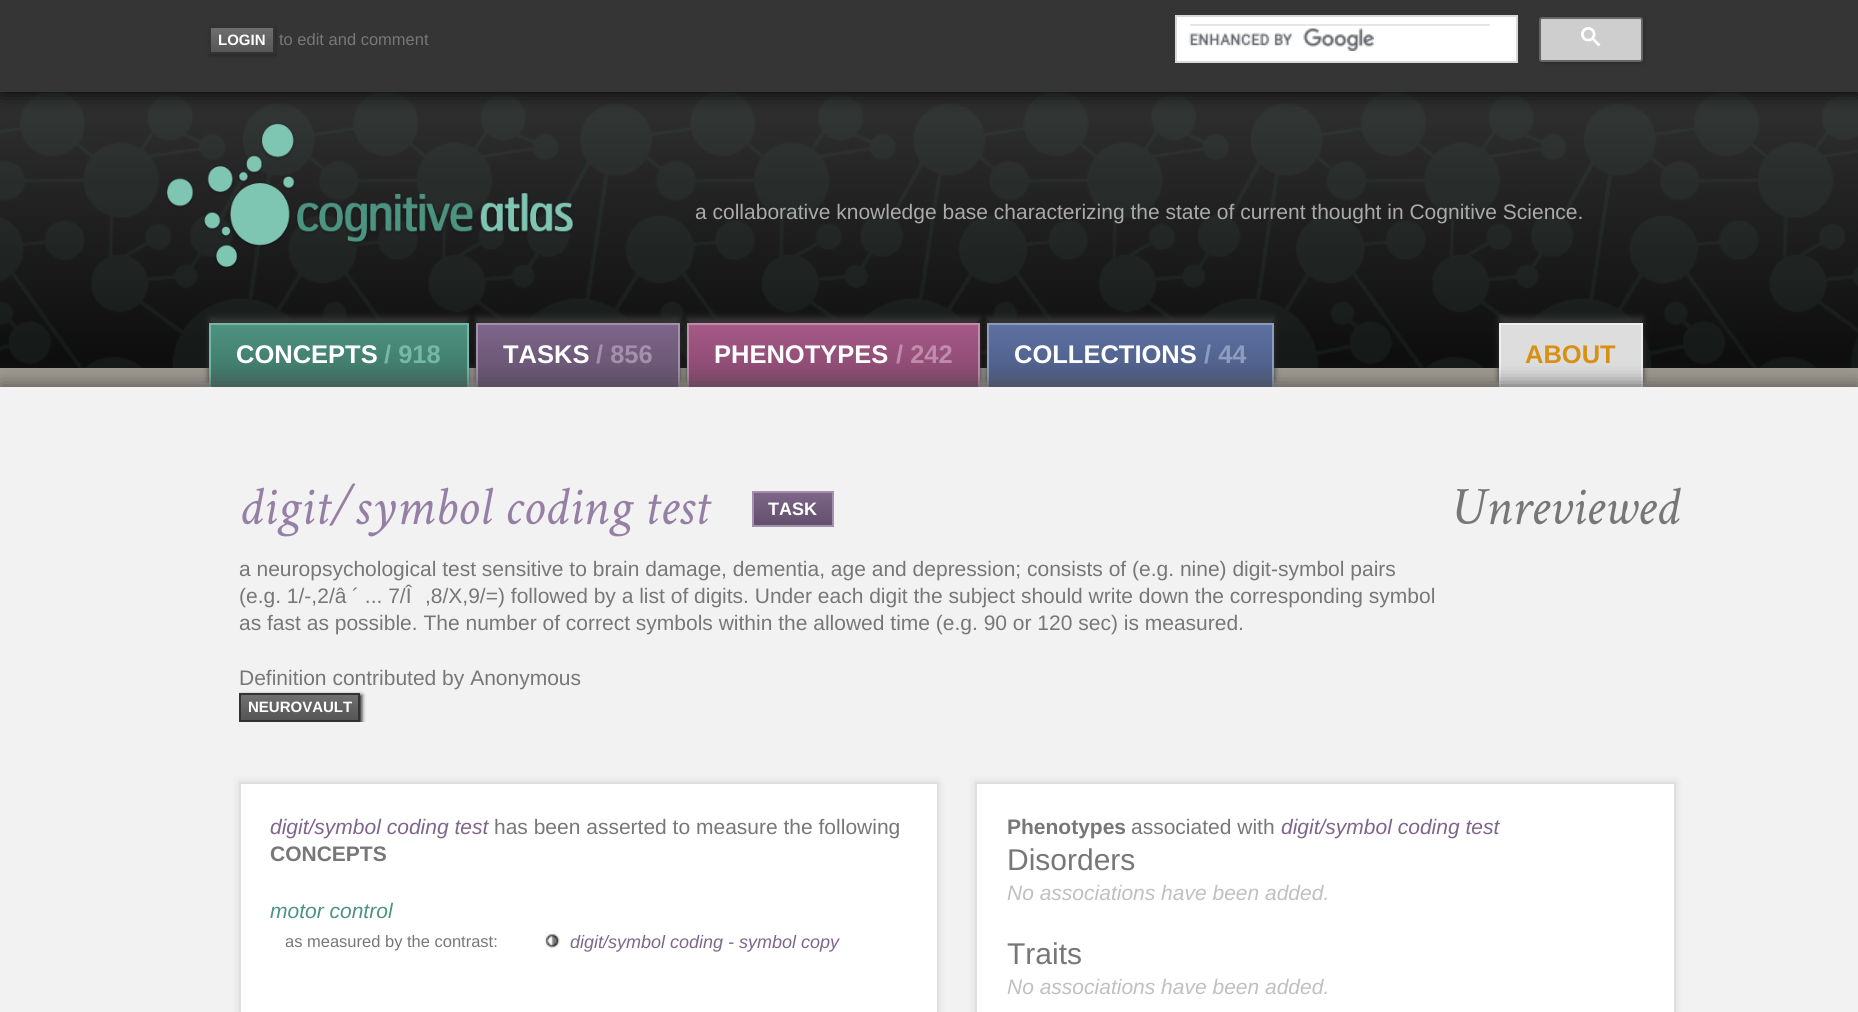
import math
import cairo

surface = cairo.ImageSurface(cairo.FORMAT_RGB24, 1858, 1012)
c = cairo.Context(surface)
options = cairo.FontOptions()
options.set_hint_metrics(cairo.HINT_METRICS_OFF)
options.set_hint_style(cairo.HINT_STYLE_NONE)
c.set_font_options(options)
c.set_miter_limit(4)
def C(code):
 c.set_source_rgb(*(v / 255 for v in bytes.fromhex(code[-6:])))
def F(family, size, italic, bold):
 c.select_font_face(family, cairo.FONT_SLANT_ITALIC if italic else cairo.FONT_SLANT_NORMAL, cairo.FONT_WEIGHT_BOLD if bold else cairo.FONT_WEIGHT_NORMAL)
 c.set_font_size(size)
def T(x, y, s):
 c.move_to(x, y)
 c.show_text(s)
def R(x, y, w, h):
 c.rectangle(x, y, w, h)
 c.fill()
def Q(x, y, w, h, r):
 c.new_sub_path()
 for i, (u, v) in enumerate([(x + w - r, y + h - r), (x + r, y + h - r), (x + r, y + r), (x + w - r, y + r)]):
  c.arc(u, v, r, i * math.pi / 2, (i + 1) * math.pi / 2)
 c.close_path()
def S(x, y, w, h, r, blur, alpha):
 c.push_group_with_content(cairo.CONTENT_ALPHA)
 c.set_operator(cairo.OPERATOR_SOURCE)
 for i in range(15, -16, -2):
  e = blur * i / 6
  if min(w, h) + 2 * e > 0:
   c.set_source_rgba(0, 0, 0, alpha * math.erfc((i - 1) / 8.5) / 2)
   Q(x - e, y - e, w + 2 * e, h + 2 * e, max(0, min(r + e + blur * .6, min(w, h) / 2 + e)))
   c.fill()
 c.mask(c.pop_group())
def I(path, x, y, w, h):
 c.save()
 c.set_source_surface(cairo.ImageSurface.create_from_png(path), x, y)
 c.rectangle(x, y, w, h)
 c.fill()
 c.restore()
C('ffffff')
c.paint()
I('3.png',0,92,1858,276)
C('000000')
S(0,0,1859,92,0,10,1)
C('353535')
R(0,0,1858,92)
C('292929')
S(210,27,66,29,0,2,1)
gradient = cairo.LinearGradient(210,53,210,27)
gradient.add_color_stop_rgba(0,0.333,0.333,0.333,1)
gradient.add_color_stop_rgba(1,0.439,0.439,0.439,1)
c.set_source(gradient)
R(211,28,62,24)
c.rectangle(210,27,64,26)
C('333333')
c.stroke()
F('Liberation Sans',15,0,1)
C('ffffff')
T(218,45,'LOGIN')
F('Liberation Sans',16.5,0,0)
C('777777')
T(279,45,'to edit and comment')
C('ffffff')
c.rectangle(1176,16,341,46)
c.fill_preserve()
C('d9d9d9')
c.stroke()
I('1.png',1189,28,185,23)
C('e6e6e6')
R(1190,24,300,2)
C('292929')
S(1541,18,103,45,3,2,1)
C('cecece')
Q(1540,18,102,43,2)
c.fill_preserve()
C('666666')
c.stroke()
I('2.png',1581,27,20,20)
I('4.png',166,123,407,145)
F('Liberation Sans',21,0,0)
C('aaaaaa')
T(695,219,'a collaborative knowledge base characterizing the state of current thought in Cognitive Science.')
C('a09b92')
R(0,368,1858,19)
C('333333')
S(209,317,259,64,0,3,1)
gradient = cairo.LinearGradient(210,387,210,324)
gradient.add_color_stop_rgba(0,0.235,0.447,0.388,1)
gradient.add_color_stop_rgba(1,0.302,0.58,0.502,1)
c.set_source(gradient)
R(211,325,256,62)
C('76b8a5')
R(209,323,259,2)
R(467,323,2,64)
R(209,323,2,64)
F('Liberation Sans',25.5,0,1)
C('ffffff')
T(236,363,'CONCEPTS')
C('76b8a5')
T(384,363,'/ 918')
C('333333')
S(476,317,204,64,0,3,1)
gradient = cairo.LinearGradient(477,387,477,324)
gradient.add_color_stop_rgba(0,0.388,0.314,0.427,1)
gradient.add_color_stop_rgba(1,0.494,0.4,0.541,1)
c.set_source(gradient)
R(478,325,200,62)
C('a390ad')
R(476,323,204,2)
R(678,323,2,64)
R(476,323,2,64)
C('ffffff')
T(503,363,'TASKS')
C('a390ad')
T(596,363,'/ 856')
C('333333')
S(687,317,293,64,0,3,1)
gradient = cairo.LinearGradient(689,387,689,324)
gradient.add_color_stop_rgba(0,0.522,0.278,0.424,1)
gradient.add_color_stop_rgba(1,0.651,0.349,0.529,1)
c.set_source(gradient)
R(689,325,289,62)
C('c18bab')
R(687,323,293,2)
R(978,323,2,64)
R(687,323,2,64)
C('ffffff')
T(714,363,'PHENOTYPES')
C('c18bab')
T(896,363,'/ 242')
C('333333')
S(987,317,287,64,0,3,1)
gradient = cairo.LinearGradient(989,387,989,324)
gradient.add_color_stop_rgba(0,0.29,0.353,0.51,1)
gradient.add_color_stop_rgba(1,0.365,0.443,0.635,1)
c.set_source(gradient)
R(989,325,283,62)
C('8e9cbe')
R(987,323,287,2)
R(1272,323,2,64)
R(987,323,2,64)
C('ffffff')
T(1014,363,'COLLECTIONS')
C('8e9cbe')
T(1204,363,'/ 44')
C('333333')
S(1499,317,144,64,0,3,1)
C('dddddd')
R(1501,325,140,62)
C('eeeeee')
R(1499,323,144,2)
R(1641,323,2,64)
R(1499,323,2,64)
C('d89013')
T(1525,363,'ABOUT')
C('505050')
S(0,386,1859,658,0,10.5,1)
C('f2f2f2')
R(0,387,1858,625)
F('Crimson Text',54.5,1,0)
C('967fa5')
T(239,524,'digit/symbol coding test')
gradient = cairo.LinearGradient(753,525,753,492)
gradient.add_color_stop_rgba(0,0.388,0.314,0.427,1)
gradient.add_color_stop_rgba(1,0.494,0.4,0.541,1)
c.set_source(gradient)
R(754,493,78,32)
c.rectangle(753,492,80,34)
C('a390ad')
c.stroke()
F('Liberation Sans',18,0,1)
C('ffffff')
T(768,515,'TASK')
F('Crimson Text',54.5,1,0)
C('777777')
T(1451,524,'Unreviewed')
F('Liberation Sans',21,0,0)
T(239,576,'a neuropsychological test sensitive to brain damage, dementia, age and depression; consists of (e.g. nine) digit-symbol pairs')
T(239,603,'(e.g. 1/-,2/â')
T(352,603,'´ ... 7/Î')
T(425,603,',8/X,9/=) followed by a list of digits. Under each digit the subject should write down the corresponding symbol')
T(239,630,'as fast as possible. The number of correct symbols within the allowed time (e.g. 90 or 120 sec) is measured.')
T(239,685,'Definition contributed by Anonymous')
c.save()
c.rectangle(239,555,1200,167)
c.clip()
C('292929')
S(240,695,122,28,0,2,1)
c.restore()
gradient = cairo.LinearGradient(240,720,240,695)
gradient.add_color_stop_rgba(0,0.333,0.333,0.333,1)
gradient.add_color_stop_rgba(1,0.439,0.439,0.439,1)
c.set_source(gradient)
R(241,695,117,25)
c.rectangle(240,694,119,27)
C('333333')
c.stroke()
F('Liberation Sans',15,0,1)
C('ffffff')
T(248,712,'NEUROVAULT')
C('000000')
S(239,782,700,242,0,4,.1)
C('ffffff')
c.rectangle(240,783,698,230)
c.fill_preserve()
C('dfdfdf')
c.stroke()
F('Liberation Sans',21,1,0)
C('7e668a')
T(270,834,'digit/symbol coding test')
F('Liberation Sans',21,0,0)
C('777777')
T(494,834,'has been asserted to measure the following')
F('Liberation Sans',21,0,1)
T(270,861,'CONCEPTS')
F('Liberation Sans',21,1,0)
C('4c9480')
T(270,918,'motor control')
F('Liberation Sans',16.5,0,0)
C('777777')
T(285,947,'as measured by the contrast:')
I('5.png',545,930,15,18)
F('Liberation Sans',18,1,0)
C('7e668a')
T(570,948,'digit/symbol coding - symbol copy')
C('000000')
S(975,782,701,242,0,4,.1)
C('ffffff')
c.rectangle(976,783,699,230)
c.fill_preserve()
C('dfdfdf')
c.stroke()
F('Liberation Sans',21,0,1)
C('777777')
T(1007,834,'Phenotypes')
F('Liberation Sans',21,0,0)
T(1131,834,'associated with')
F('Liberation Sans',21,1,0)
C('7e668a')
T(1281,834,'digit/symbol coding test')
F('Liberation Sans',30,0,0)
C('777777')
T(1007,870,'Disorders')
F('Liberation Sans',21,1,0)
C('c0c0c0')
T(1007,900,'No associations have been added.')
F('Liberation Sans',30,0,0)
C('777777')
T(1007,964,'Traits')
F('Liberation Sans',21,1,0)
C('c0c0c0')
T(1007,994,'No associations have been added.')
surface.write_to_png('o.png')
